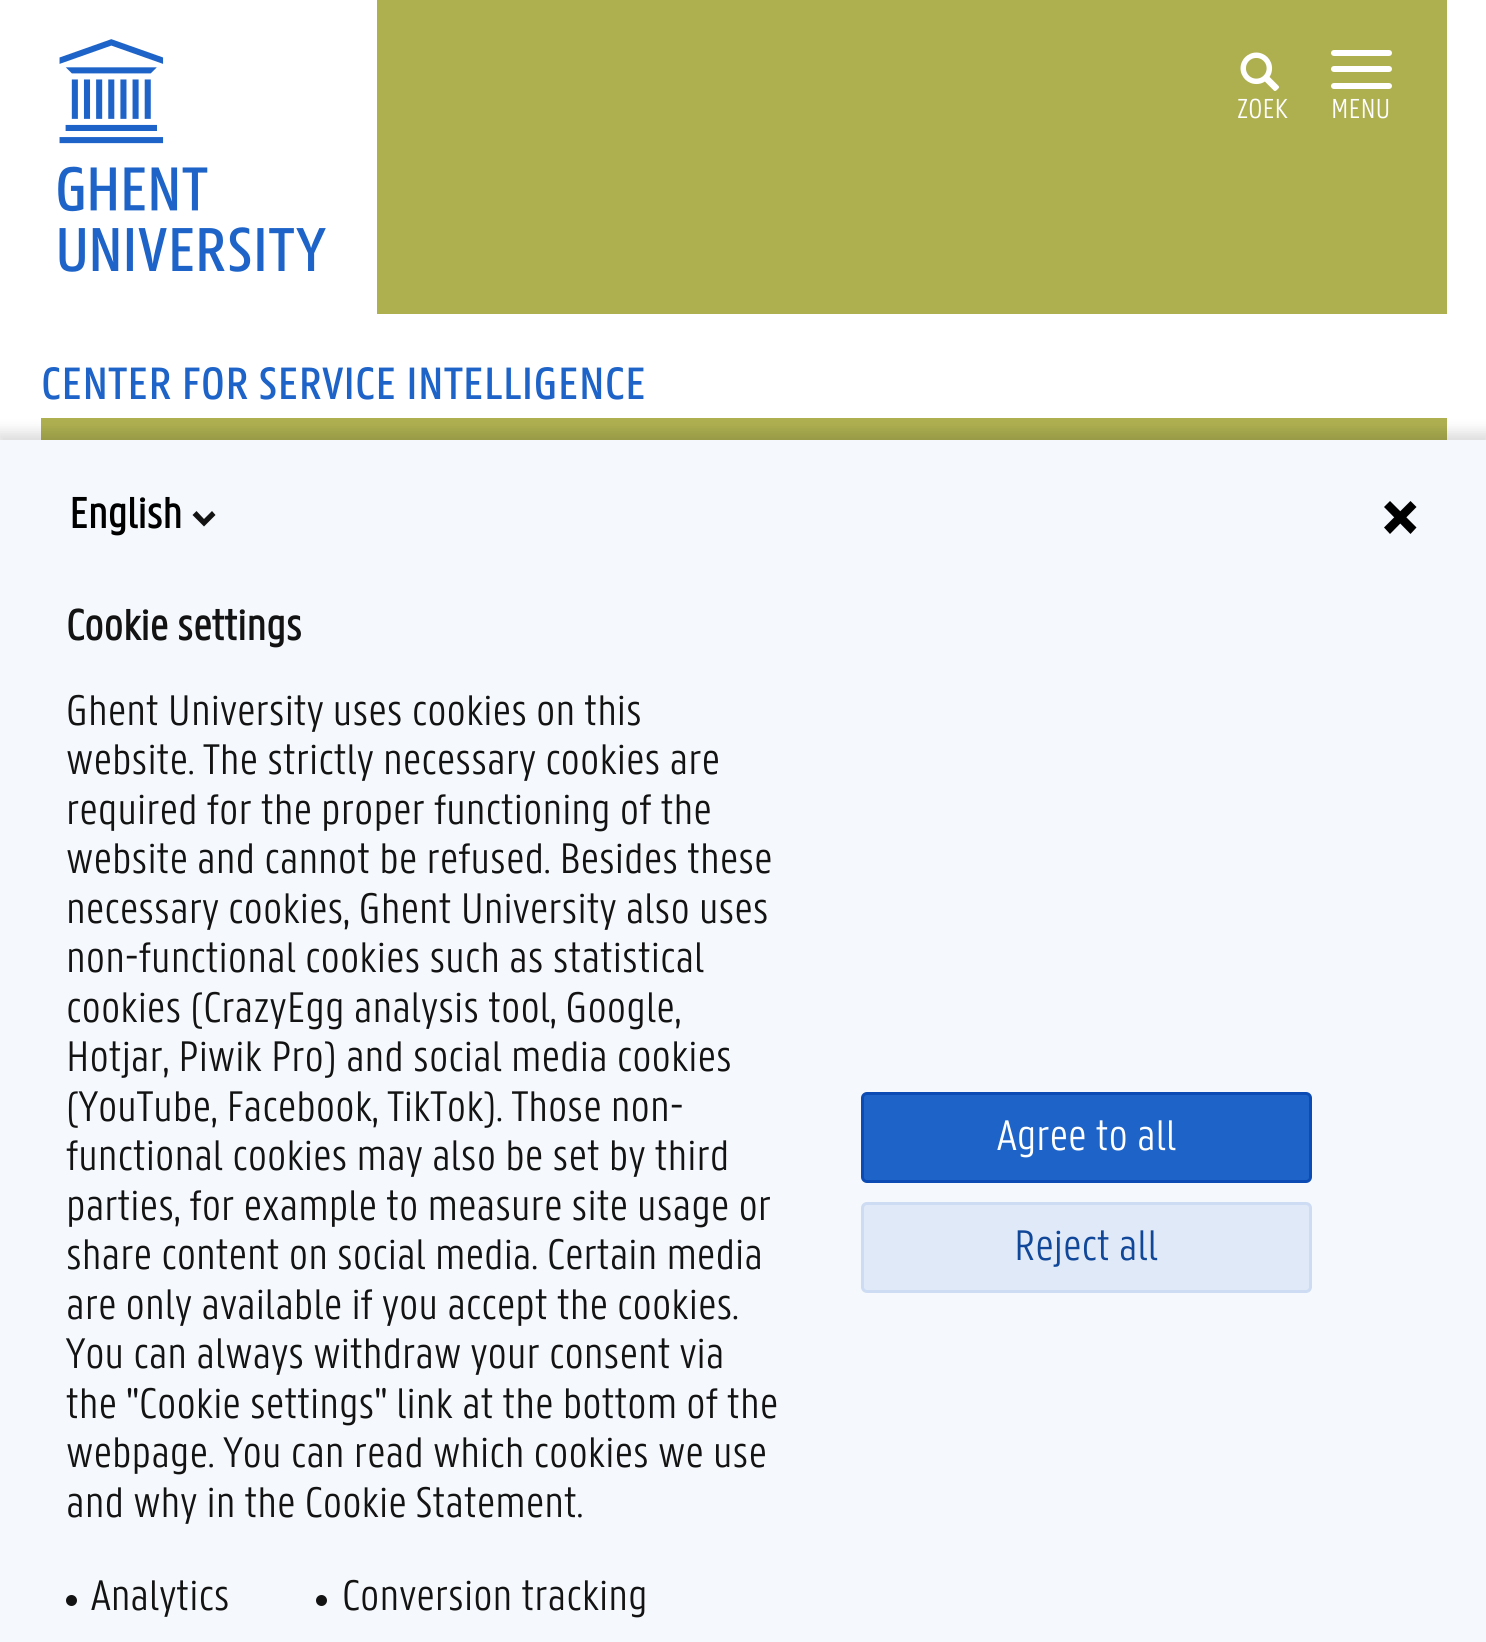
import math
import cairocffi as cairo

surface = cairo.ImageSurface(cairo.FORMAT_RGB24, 1486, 1642)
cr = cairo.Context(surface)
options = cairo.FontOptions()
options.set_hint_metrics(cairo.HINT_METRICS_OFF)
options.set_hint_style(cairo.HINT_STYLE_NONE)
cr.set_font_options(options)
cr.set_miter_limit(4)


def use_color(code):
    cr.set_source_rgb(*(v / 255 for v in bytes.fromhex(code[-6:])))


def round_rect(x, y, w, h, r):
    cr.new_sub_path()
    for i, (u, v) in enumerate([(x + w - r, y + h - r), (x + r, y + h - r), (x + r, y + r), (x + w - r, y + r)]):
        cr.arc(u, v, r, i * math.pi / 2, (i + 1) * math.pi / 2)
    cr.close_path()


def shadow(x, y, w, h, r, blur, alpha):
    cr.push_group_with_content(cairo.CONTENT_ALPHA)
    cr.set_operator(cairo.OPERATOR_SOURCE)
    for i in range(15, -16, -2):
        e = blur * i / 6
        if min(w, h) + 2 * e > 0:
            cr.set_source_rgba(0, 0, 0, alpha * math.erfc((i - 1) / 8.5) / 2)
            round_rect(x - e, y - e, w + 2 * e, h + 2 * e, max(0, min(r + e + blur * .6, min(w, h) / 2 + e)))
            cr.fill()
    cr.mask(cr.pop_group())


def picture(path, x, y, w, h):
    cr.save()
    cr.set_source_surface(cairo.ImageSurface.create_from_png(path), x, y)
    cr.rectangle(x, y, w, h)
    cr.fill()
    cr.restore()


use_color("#ffffff")
cr.paint()
use_color("#aeb050")
cr.rectangle(377, 0, 1070, 314)
cr.fill()
picture("img1.png", 58, 39, 268, 233)
picture("img2.png", 1240, 52, 40, 39)
cr.select_font_face("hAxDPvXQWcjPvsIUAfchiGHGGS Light")
cr.set_font_size(30)
use_color("#ffffff")
cr.move_to(1237, 118)
cr.show_text("ZOEK")
round_rect(1331, 50, 61, 6, 3)
cr.fill()
round_rect(1331, 66, 61, 6, 3)
cr.fill()
round_rect(1331, 83, 61, 6, 3)
cr.fill()
cr.move_to(1331, 118)
cr.show_text("MENU")
cr.select_font_face("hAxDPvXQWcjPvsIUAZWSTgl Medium")
cr.set_font_size(49.5)
use_color("#1e64c8")
cr.move_to(41, 399)
cr.show_text("CENTER FOR SERVICE INTELLIGENCE")
use_color("#aeb050")
cr.rectangle(41, 418, 1406, 22)
cr.fill()
use_color("#000000")
shadow(-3, 432, 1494, 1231, 0, 7, 0.14)
use_color("#f5f8fc")
cr.rectangle(0, 440, 1486, 1202)
cr.fill()
cr.select_font_face("hAxDPvXQWcjPvsIUAfchiGHGGS", cairo.FONT_SLANT_NORMAL, cairo.FONT_WEIGHT_BOLD)
cr.set_font_size(46.75)
use_color("#000000")
cr.move_to(69, 528)
cr.show_text("English")
use_color("#131313")
cr.new_path()
cr.move_to(204, 519)
cr.line_to(212, 511)
cr.line_to(215.5, 515)
cr.line_to(204, 526.5)
cr.line_to(192.5, 515)
cr.line_to(196.5, 511)
cr.close_path()
cr.fill()
use_color("#000000")
cr.new_path()
cr.move_to(1384, 507)
cr.line_to(1390, 501)
cr.line_to(1416.5, 527.5)
cr.line_to(1410.5, 534)
cr.line_to(1384, 507)
cr.fill()
cr.new_path()
cr.move_to(1410.5, 501)
cr.line_to(1416.5, 507)
cr.line_to(1390, 534)
cr.line_to(1384, 527.5)
cr.line_to(1410.5, 501)
cr.fill()
use_color("#131313")
cr.move_to(66, 640)
cr.show_text("Cookie settings")
cr.select_font_face("hAxDPvXQWcjPvsIUAfchiGHGGS Light")
cr.move_to(66, 725)
cr.show_text("Ghent University uses cookies on this")
cr.move_to(66, 774)
cr.show_text("website. The strictly necessary cookies are")
cr.move_to(66, 824)
cr.show_text("required for the proper functioning of the")
cr.move_to(66, 873)
cr.show_text("website and cannot be refused. Besides these")
cr.move_to(66, 923)
cr.show_text("necessary cookies, Ghent University also uses")
cr.move_to(66, 972)
cr.show_text("non-functional cookies such as statistical")
cr.move_to(66, 1022)
cr.show_text("cookies (CrazyEgg analysis tool, Google,")
cr.move_to(66, 1071)
cr.show_text("Hotjar, Piwik Pro) and social media cookies")
cr.move_to(66, 1121)
cr.show_text("(YouTube, Facebook, TikTok). Those non-")
cr.move_to(66, 1170)
cr.show_text("functional cookies may also be set by third")
cr.move_to(66, 1220)
cr.show_text("parties, for example to measure site usage or")
cr.move_to(66, 1269)
cr.show_text("share content on social media. Certain media")
cr.move_to(66, 1319)
cr.show_text("are only available if you accept the cookies.")
cr.move_to(66, 1368)
cr.show_text("You can always withdraw your consent via")
cr.move_to(66, 1418)
cr.show_text("the \"Cookie settings\" link at the bottom of the")
cr.move_to(66, 1467)
cr.show_text("webpage. You can read which cookies we use")
cr.move_to(66, 1517)
cr.show_text("and why in the Cookie Statement.")
cr.new_path()
cr.arc(71.5, 1600.5, 5.5, 0, 2 * math.pi)
cr.fill()
cr.move_to(91, 1610)
cr.show_text("Analytics")
cr.new_path()
cr.arc(321.5, 1600.5, 5.5, 0, 2 * math.pi)
cr.fill()
cr.move_to(342, 1610)
cr.show_text("Conversion tracking")
use_color("#1e64c8")
round_rect(862.5, 1093.5, 448, 88, 4.5)
cr.fill_preserve()
use_color("#0b4bb3")
cr.set_line_width(3)
cr.stroke()
use_color("#ffffff")
cr.move_to(997, 1150)
cr.show_text("Agree to all")
use_color("#e0e9f7")
round_rect(861, 1202, 451, 91, 6)
cr.fill()
round_rect(862.5, 1203.5, 448, 88, 4.5)
cr.set_source_rgba(0.118, 0.392, 0.784, 0.1)
cr.stroke()
use_color("#114799")
cr.move_to(1014, 1260)
cr.show_text("Reject all")
surface.write_to_png("result.png")
